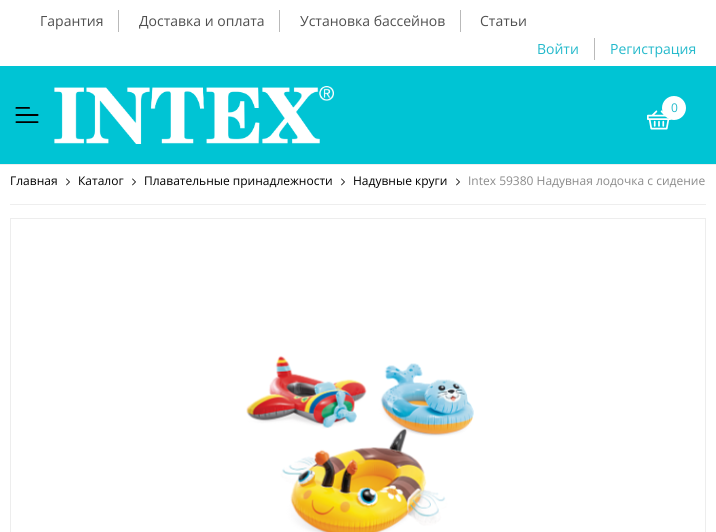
import math
import cairocffi as cairo

surface = cairo.ImageSurface(cairo.FORMAT_RGB24, 716, 532)
cr = cairo.Context(surface)
options = cairo.FontOptions()
options.set_hint_metrics(cairo.HINT_METRICS_OFF)
options.set_hint_style(cairo.HINT_STYLE_NONE)
cr.set_font_options(options)
cr.set_miter_limit(4)


def use_color(code):
    cr.set_source_rgb(*(v / 255 for v in bytes.fromhex(code[-6:])))


def picture(path, x, y, w, h):
    cr.save()
    cr.set_source_surface(cairo.ImageSurface.create_from_png(path), x, y)
    cr.rectangle(x, y, w, h)
    cr.fill()
    cr.restore()


use_color("#ffffff")
cr.paint()
use_color("#b9b9b9")
cr.rectangle(118, 10, 1, 22)
cr.fill()
cr.select_font_face("Open Sans")
cr.set_font_size(14)
use_color("#4f4f4f")
cr.move_to(40, 26)
cr.show_text("Гарантия")
use_color("#b9b9b9")
cr.rectangle(279, 10, 1, 22)
cr.fill()
use_color("#4f4f4f")
cr.move_to(139, 26)
cr.show_text("Доставка и оплата")
use_color("#b9b9b9")
cr.rectangle(460, 10, 1, 22)
cr.fill()
use_color("#4f4f4f")
cr.move_to(300, 26)
cr.show_text("Установка бассейнов")
cr.move_to(480, 26)
cr.show_text("Статьи")
use_color("#b9b9b9")
cr.rectangle(594, 38, 1, 22)
cr.fill()
use_color("#23b9cb")
cr.move_to(537, 54)
cr.show_text("Войти")
cr.move_to(610, 54)
cr.show_text("Регистрация")
use_color("#eeeeee")
cr.rectangle(0, 164, 716, 1)
cr.fill()
use_color("#00c4d4")
cr.rectangle(0, 66, 716, 98)
cr.fill()
picture("img1.png", 15, 107, 24, 16)
picture("img2.png", 54, 86, 280, 58)
picture("img3.png", 647, 110, 24, 20)
use_color("#ffffff")
cr.arc(674, 108, 11, 0, 2 * math.pi)
cr.fill_preserve()
cr.stroke()
cr.set_font_size(12)
use_color("#23b9cb")
cr.move_to(671, 112)
cr.show_text("0")
use_color("#eeeeee")
cr.rectangle(10, 204, 696, 1)
cr.fill()
use_color("#000000")
cr.move_to(10, 185)
cr.show_text("Главная")
picture("img4.png", 66, 178, 4, 8)
cr.move_to(78, 185)
cr.show_text("Каталог")
picture("img4.png", 132, 178, 4, 8)
cr.move_to(144, 185)
cr.show_text("Плавательные принадлежности")
picture("img4.png", 341, 178, 4, 8)
cr.move_to(353, 185)
cr.show_text("Надувные круги")
picture("img4.png", 456, 178, 4, 8)
use_color("#8b8b8b")
cr.move_to(468, 185)
cr.show_text("Intex 59380 Надувная лодочка с сидение")
cr.rectangle(10.5, 218.5, 695, 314)
use_color("#ededed")
cr.set_line_width(1)
cr.stroke()
picture("img5.png", 246, 355, 228, 177)
surface.write_to_png("result.png")
